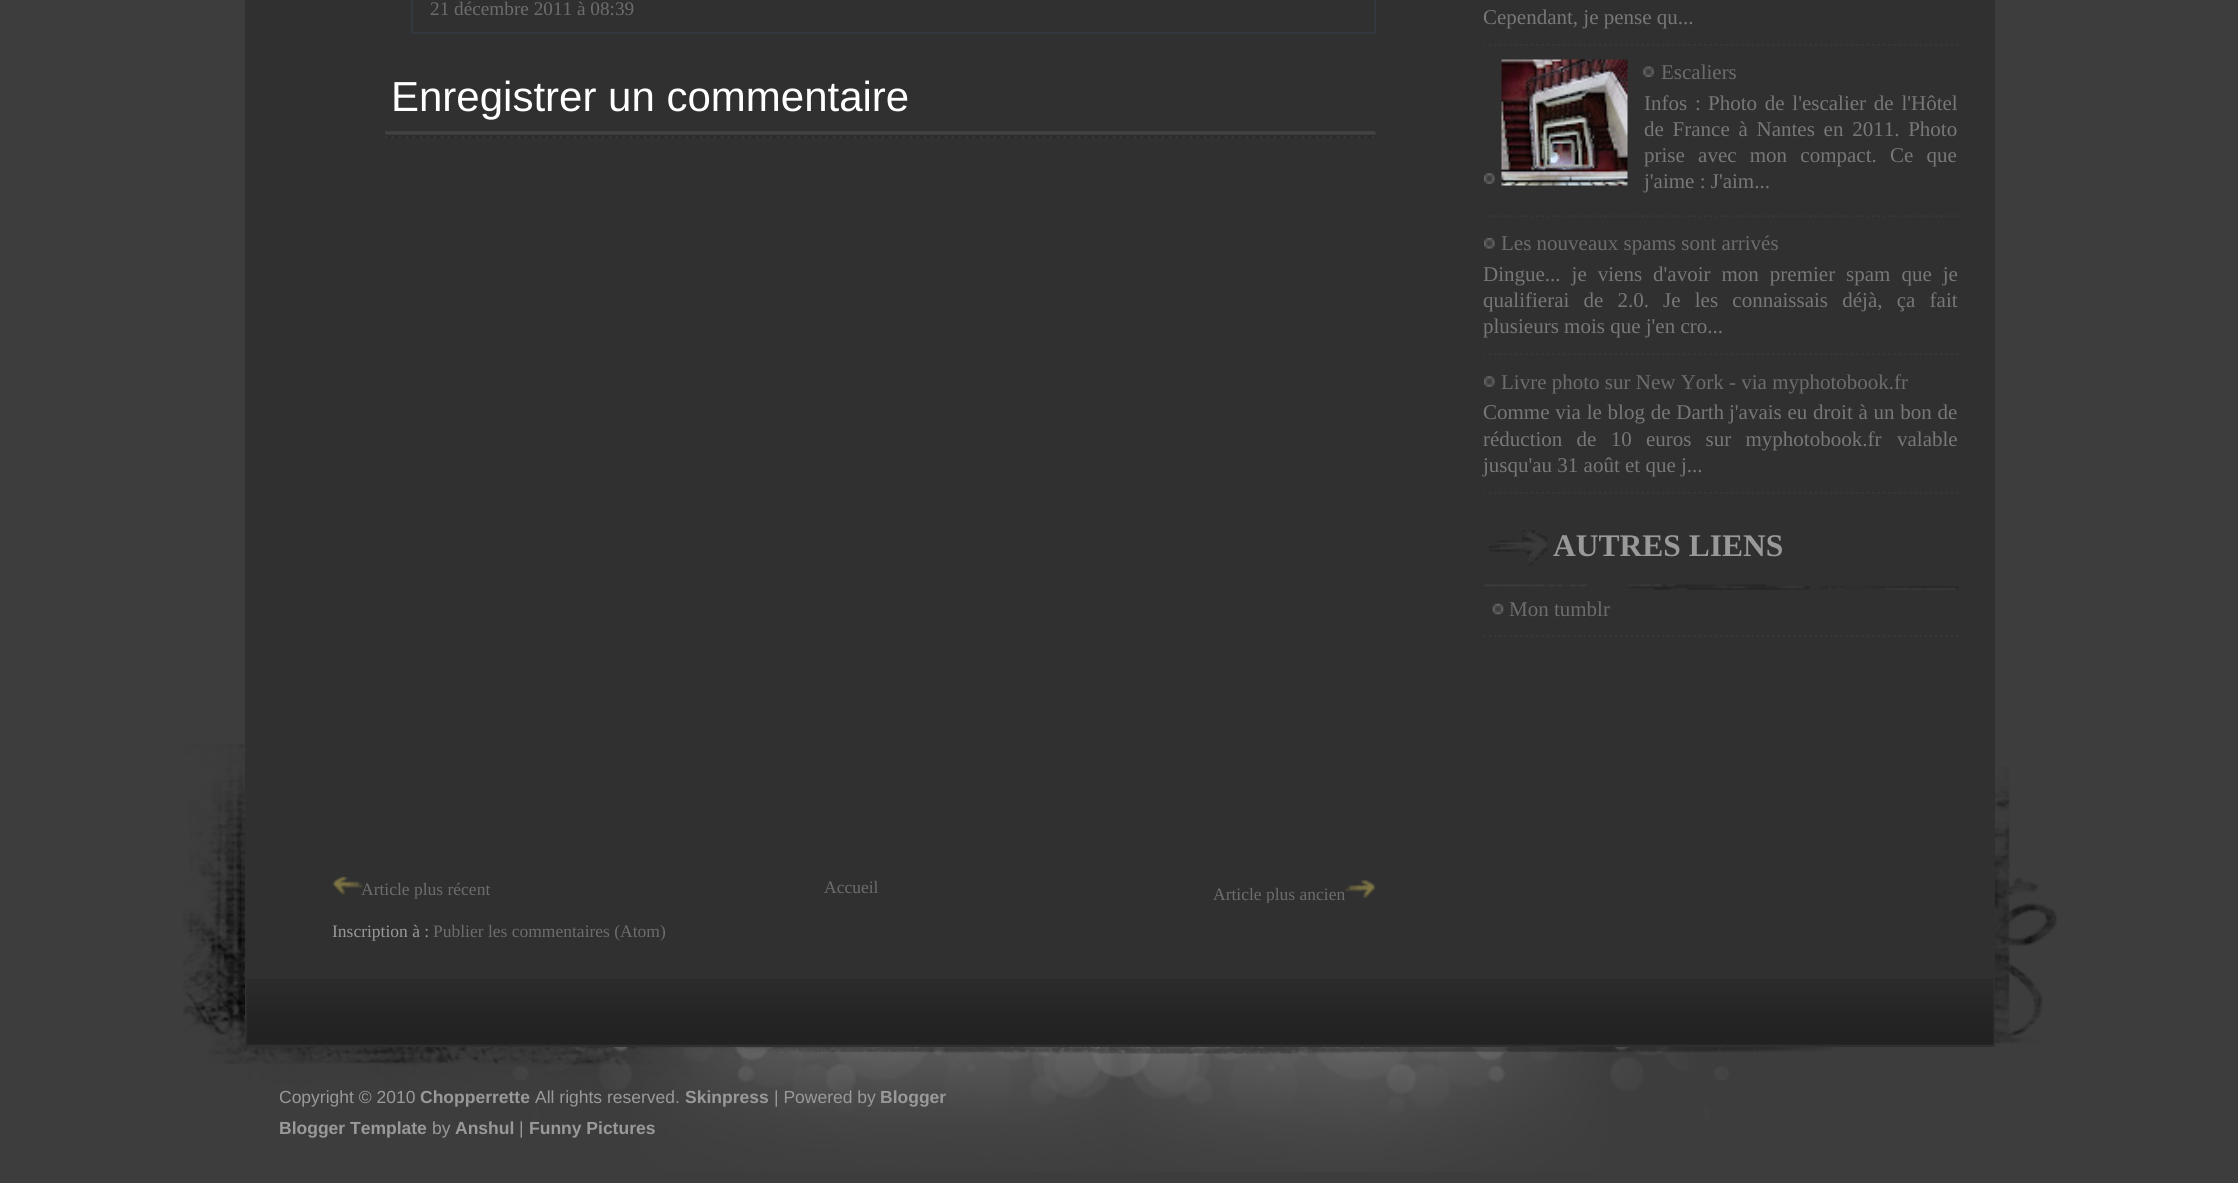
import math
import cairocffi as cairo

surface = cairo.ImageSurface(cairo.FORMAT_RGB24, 2238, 1183)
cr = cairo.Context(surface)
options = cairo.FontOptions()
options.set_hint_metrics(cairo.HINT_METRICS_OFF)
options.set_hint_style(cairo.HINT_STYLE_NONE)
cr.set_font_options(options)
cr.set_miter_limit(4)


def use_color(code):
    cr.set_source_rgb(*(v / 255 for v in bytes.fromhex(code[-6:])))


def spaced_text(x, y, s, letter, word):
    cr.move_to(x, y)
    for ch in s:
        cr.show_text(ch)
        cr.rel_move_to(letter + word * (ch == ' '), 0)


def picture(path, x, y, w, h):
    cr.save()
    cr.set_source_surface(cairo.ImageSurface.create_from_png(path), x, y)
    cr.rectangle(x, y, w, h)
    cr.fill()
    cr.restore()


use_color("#3d3d3d")
cr.paint()
picture("img1.png", 183, 744, 1874, 320)
use_color("#303030")
cr.rectangle(245, 0, 1750, 1047)
cr.fill()
picture("img2.png", 246, 979, 1748, 66)
use_color("#33383e")
cr.rectangle(1374, 0, 2, 33)
cr.fill()
cr.rectangle(411, 32, 965, 2)
cr.fill()
cr.rectangle(411, 0, 2, 33)
cr.fill()
cr.select_font_face("Liberation Serif")
cr.set_font_size(19.25)
use_color("#6c6c6c")
cr.move_to(430, 15)
cr.show_text("21 décembre 2011 à 08:39")
picture("img3.png", 385, 131, 991, 7)
cr.select_font_face("Liberation Sans")
cr.set_font_size(42)
use_color("#ffffff")
cr.move_to(391, 111)
cr.show_text("Enregistrer un commentaire")
picture("img4.png", 332, 877, 31, 18)
cr.select_font_face("Liberation Serif")
cr.set_font_size(17.5)
use_color("#6c6c6c")
cr.move_to(361, 895)
cr.show_text("Article plus récent")
cr.move_to(824, 893)
cr.show_text("Accueil")
cr.save()
cr.rectangle(333, 877, 1043, 26)
cr.clip()
cr.move_to(1213, 900)
cr.show_text("Article plus ancien")
cr.restore()
picture("img5.png", 1345, 880, 31, 18)
use_color("#999999")
cr.move_to(332, 937)
cr.show_text("Inscription à :")
use_color("#6c6c6c")
cr.move_to(433, 937)
cr.show_text("Publier les commentaires (Atom)")
picture("img6.png", 1484, 44, 474, 2)
cr.set_font_size(21)
use_color("#777777")
cr.move_to(1483, 24)
cr.show_text("Cependant, je pense qu...")
picture("img7.png", 1484, 215, 474, 2)
picture("img8.png", 1484, 173, 11, 11)
picture("img9.png", 1501, 59, 127, 127)
picture("img10.png", 1643, 66, 11, 11)
use_color("#6c6c6c")
cr.move_to(1661, 79)
cr.show_text("Escaliers")
use_color("#777777")
spaced_text(1644, 110, "Infos :", 0, 2.5)
spaced_text(1708, 110, "Photo de l'escalier de l'Hôtel", 0, 2.5)
spaced_text(1644, 136, "de France à Nantes en 2011. Photo", 0, 3.5)
spaced_text(1644, 162, "prise avec mon compact.", 0, 8)
spaced_text(1890, 162, "Ce que", 0, 8)
cr.move_to(1644, 188)
cr.show_text("j'aime : J'aim...")
picture("img11.png", 1484, 353, 474, 2)
picture("img12.png", 1484, 238, 11, 11)
use_color("#6c6c6c")
cr.move_to(1501, 250)
cr.show_text("Les nouveaux spams sont arrivés")
use_color("#777777")
spaced_text(1483, 281, "Dingue... je viens d'avoir mon premier spam que je", 0, 5.75)
spaced_text(1483, 307, "qualifierai de 2.0.", 0, 9)
spaced_text(1663, 307, "Je les connaissais déjà, ça fait", 0, 9)
cr.move_to(1483, 333)
cr.show_text("plusieurs mois que j'en cro...")
picture("img6.png", 1484, 492, 474, 2)
picture("img8.png", 1484, 376, 11, 11)
use_color("#6c6c6c")
cr.move_to(1501, 389)
cr.show_text("Livre photo sur New York - via myphotobook.fr")
use_color("#777777")
spaced_text(1483, 419, "Comme via le blog de Darth", 0, 0.5)
spaced_text(1729, 419, "j'avais eu droit à un bon de", 0, 0.5)
spaced_text(1483, 446, "réduction de 10 euros sur myphotobook.fr", 0, 9)
cr.move_to(1897, 446)
cr.show_text("valable")
cr.move_to(1483, 472)
cr.show_text("jusqu'au 31 août et que j...")
picture("img13.png", 1484, 530, 474, 60)
cr.select_font_face("Liberation Serif", cairo.FONT_SLANT_NORMAL, cairo.FONT_WEIGHT_BOLD)
cr.set_font_size(31.5)
use_color("#999999")
cr.move_to(1553, 556)
cr.show_text("AUTRES LIENS")
picture("img7.png", 1484, 635, 474, 2)
picture("img14.png", 1492, 603, 12, 12)
cr.select_font_face("Liberation Serif")
cr.set_font_size(21)
use_color("#6c6c6c")
cr.move_to(1509, 616)
cr.show_text("Mon tumblr")
picture("img15.png", 247, 1047, 1586, 125)
cr.select_font_face("Liberation Sans")
cr.set_font_size(17.5)
use_color("#999999")
cr.move_to(279, 1103)
cr.show_text("Copyright © 2010")
cr.select_font_face("Liberation Sans", cairo.FONT_SLANT_NORMAL, cairo.FONT_WEIGHT_BOLD)
cr.move_to(420, 1103)
cr.show_text("Chopperrette")
cr.select_font_face("Liberation Sans")
cr.move_to(535, 1103)
cr.show_text("All rights reserved.")
cr.select_font_face("Liberation Sans", cairo.FONT_SLANT_NORMAL, cairo.FONT_WEIGHT_BOLD)
cr.move_to(685, 1103)
cr.show_text("Skinpress")
cr.select_font_face("Liberation Sans")
cr.move_to(774, 1103)
cr.show_text("| Powered by")
cr.select_font_face("Liberation Sans", cairo.FONT_SLANT_NORMAL, cairo.FONT_WEIGHT_BOLD)
cr.move_to(880, 1103)
cr.show_text("Blogger")
cr.move_to(279, 1134)
cr.show_text("Blogger Template")
cr.select_font_face("Liberation Sans")
cr.move_to(432, 1134)
cr.show_text("by")
cr.select_font_face("Liberation Sans", cairo.FONT_SLANT_NORMAL, cairo.FONT_WEIGHT_BOLD)
cr.move_to(455, 1134)
cr.show_text("Anshul")
cr.select_font_face("Liberation Sans")
cr.move_to(519, 1134)
cr.show_text("|")
cr.select_font_face("Liberation Sans", cairo.FONT_SLANT_NORMAL, cairo.FONT_WEIGHT_BOLD)
cr.move_to(529, 1134)
cr.show_text("Funny Pictures")
surface.write_to_png("result.png")
